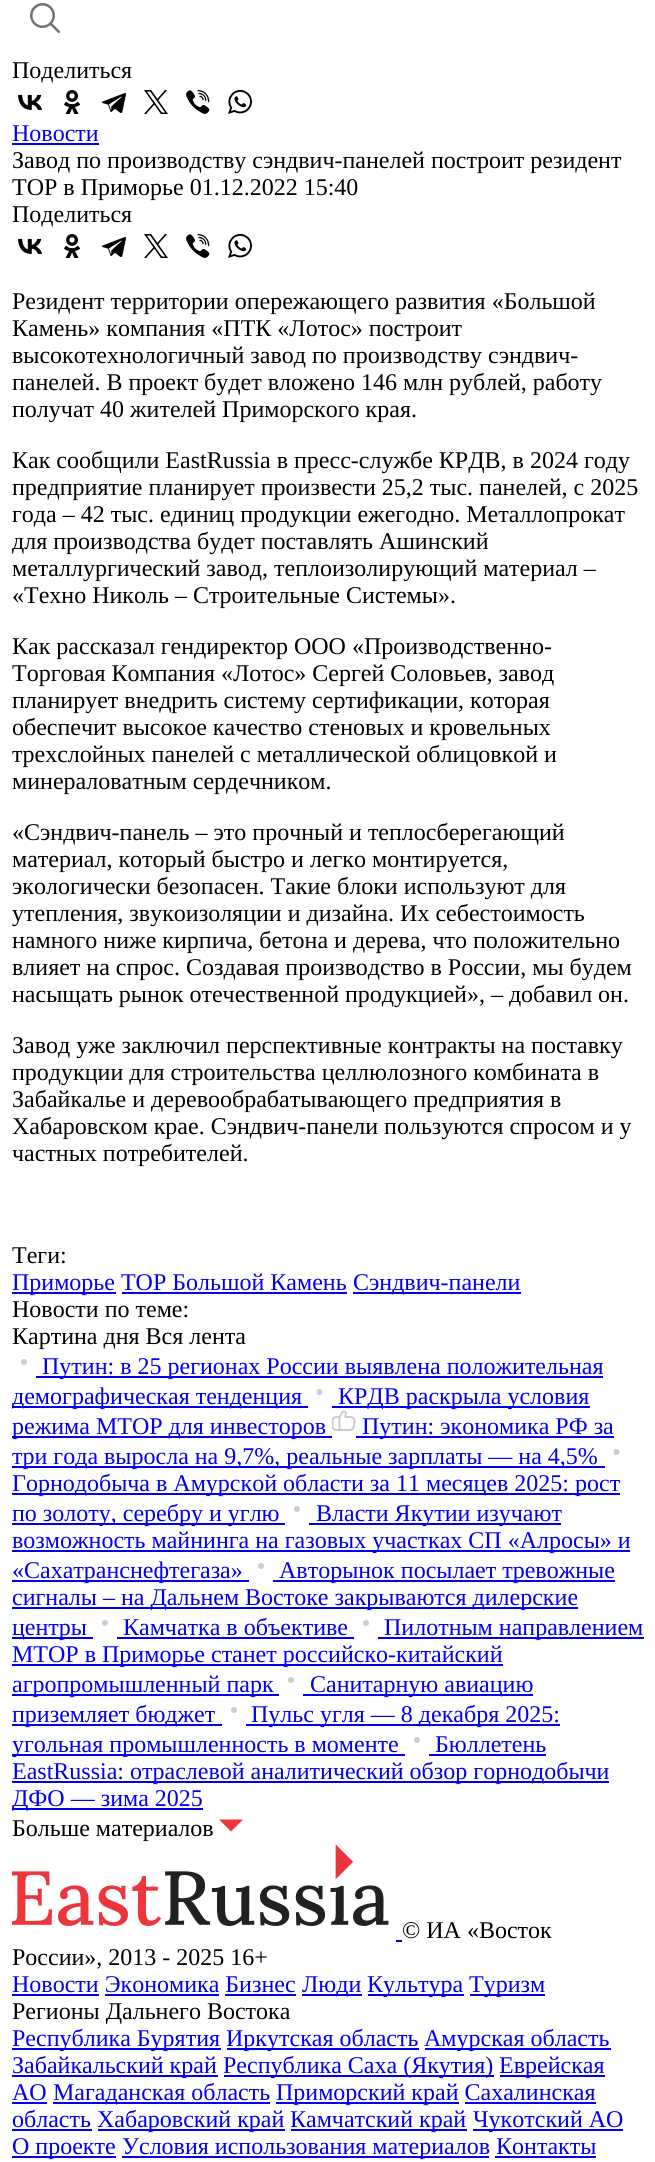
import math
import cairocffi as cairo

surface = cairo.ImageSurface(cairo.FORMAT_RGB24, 655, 2162)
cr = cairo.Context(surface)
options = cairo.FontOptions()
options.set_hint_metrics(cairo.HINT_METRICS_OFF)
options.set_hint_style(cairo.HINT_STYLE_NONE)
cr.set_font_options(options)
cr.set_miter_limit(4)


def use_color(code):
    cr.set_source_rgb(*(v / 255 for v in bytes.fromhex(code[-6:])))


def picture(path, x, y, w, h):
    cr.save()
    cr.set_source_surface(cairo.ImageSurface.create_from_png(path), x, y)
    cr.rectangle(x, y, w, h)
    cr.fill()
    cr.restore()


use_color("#ffffff")
cr.paint()
picture("img1.png", 30, 3, 30, 30)
cr.select_font_face("Liberation Serif")
cr.set_font_size(24)
use_color("#000000")
cr.move_to(12, 78)
cr.show_text("Поделиться")
picture("img2.png", 18, 94, 24, 16)
picture("img3.png", 64, 90, 17, 24)
picture("img4.png", 102, 93, 24, 21)
picture("img5.png", 144, 90, 24, 24)
picture("img6.png", 186, 90, 24, 24)
picture("img7.png", 228, 90, 24, 24)
use_color("#0000ee")
cr.move_to(12, 141)
cr.show_text("Новости")
cr.rectangle(12, 143, 87, 2)
cr.fill()
use_color("#000000")
cr.move_to(12, 168)
cr.show_text("Завод по производству сэндвич-панелей построит резидент")
cr.move_to(12, 195)
cr.show_text("ТОР в Приморье 01.12.2022 15:40")
cr.move_to(12, 222)
cr.show_text("Поделиться")
picture("img2.png", 18, 238, 24, 16)
picture("img3.png", 64, 234, 17, 24)
picture("img4.png", 102, 237, 24, 21)
picture("img5.png", 144, 234, 24, 24)
picture("img6.png", 186, 234, 24, 24)
picture("img7.png", 228, 234, 24, 24)
cr.move_to(12, 309)
cr.show_text("Резидент территории опережающего развития «Большой")
cr.move_to(12, 336)
cr.show_text("Камень» компания «ПТК «Лотос» построит")
cr.move_to(12, 363)
cr.show_text("высокотехнологичный завод по производству сэндвич-")
cr.move_to(12, 390)
cr.show_text("панелей. В проект будет вложено 146 млн рублей, работу")
cr.move_to(12, 417)
cr.show_text("получат 40 жителей Приморского края.")
cr.move_to(12, 468)
cr.show_text("Как сообщили EastRussia в пресс-службе КРДВ, в 2024 году")
cr.move_to(12, 495)
cr.show_text("предприятие планирует произвести 25,2 тыс. панелей, с 2025")
cr.move_to(12, 522)
cr.show_text("года – 42 тыс. единиц продукции ежегодно. Металлопрокат")
cr.move_to(12, 549)
cr.show_text("для производства будет поставлять Ашинский")
cr.move_to(12, 576)
cr.show_text("металлургический завод, теплоизолирующий материал –")
cr.move_to(12, 603)
cr.show_text("«Техно Николь – Строительные Системы».")
cr.move_to(12, 654)
cr.show_text("Как рассказал гендиректор ООО «Производственно-")
cr.move_to(12, 681)
cr.show_text("Торговая Компания «Лотос» Сергей Соловьев, завод")
cr.move_to(12, 708)
cr.show_text("планирует внедрить систему сертификации, которая")
cr.move_to(12, 735)
cr.show_text("обеспечит высокое качество стеновых и кровельных")
cr.move_to(12, 762)
cr.show_text("трехслойных панелей с металлической облицовкой и")
cr.move_to(12, 789)
cr.show_text("минераловатным сердечником.")
cr.move_to(12, 840)
cr.show_text("«Сэндвич-панель – это прочный и теплосберегающий")
cr.move_to(12, 867)
cr.show_text("материал, который быстро и легко монтируется,")
cr.move_to(12, 894)
cr.show_text("экологически безопасен. Такие блоки используют для")
cr.move_to(12, 921)
cr.show_text("утепления, звукоизоляции и дизайна. Их себестоимость")
cr.move_to(12, 948)
cr.show_text("намного ниже кирпича, бетона и дерева, что положительно")
cr.move_to(12, 975)
cr.show_text("влияет на спрос. Создавая производство в России, мы будем")
cr.move_to(12, 1002)
cr.show_text("насыщать рынок отечественной продукцией», – добавил он.")
cr.move_to(12, 1053)
cr.show_text("Завод уже заключил перспективные контракты на поставку")
cr.move_to(12, 1080)
cr.show_text("продукции для строительства целлюлозного комбината в")
cr.move_to(12, 1107)
cr.show_text("Забайкалье и деревообрабатывающего предприятия в")
cr.move_to(12, 1134)
cr.show_text("Хабаровском крае. Сэндвич-панели пользуются спросом и у")
cr.move_to(12, 1161)
cr.show_text("частных потребителей.")
cr.move_to(12, 1263)
cr.show_text("Теги:")
use_color("#0000ee")
cr.rectangle(12, 1292, 104, 2)
cr.fill()
cr.move_to(12, 1290)
cr.show_text("Приморье ТОР Большой Камень")
cr.rectangle(353, 1292, 168, 2)
cr.fill()
cr.move_to(353, 1290)
cr.show_text("Сэндвич-панели")
cr.rectangle(122, 1292, 225, 2)
cr.fill()
use_color("#000000")
cr.move_to(12, 1317)
cr.show_text("Новости по теме:")
cr.move_to(12, 1344)
cr.show_text("Картина дня Вся лента")
use_color("#0000ee")
cr.rectangle(36, 1376, 567, 2)
cr.fill()
cr.move_to(42, 1374)
cr.show_text("Путин: в 25 регионах России выявлена положительная")
use_color("#cccccc")
cr.new_path()
cr.arc(24, 1362, 3, 0, 2 * math.pi)
cr.fill()
use_color("#0000ee")
cr.rectangle(12, 1406, 296, 2)
cr.fill()
cr.move_to(12, 1404)
cr.show_text("демографическая тенденция")
cr.rectangle(332, 1406, 258, 2)
cr.fill()
cr.move_to(338, 1404)
cr.show_text("КРДВ раскрыла условия")
use_color("#cccccc")
cr.new_path()
cr.arc(319.5, 1392, 3, 0, 2 * math.pi)
cr.fill()
use_color("#0000ee")
cr.rectangle(12, 1436, 320, 2)
cr.fill()
cr.move_to(12, 1434)
cr.show_text("режима МТОР для инвесторов")
picture("img8.png", 332, 1410, 24, 21)
cr.rectangle(356, 1436, 258, 2)
cr.fill()
cr.move_to(362, 1434)
cr.show_text("Путин: экономика РФ за")
cr.rectangle(12, 1466, 593, 2)
cr.fill()
cr.move_to(12, 1464)
cr.show_text("три года выросла на 9,7%, реальные зарплаты — на 4,5%")
cr.rectangle(12, 1493, 608, 2)
cr.fill()
cr.move_to(12, 1491)
cr.show_text("Горнодобыча в Амурской области за 11 месяцев 2025: рост")
use_color("#cccccc")
cr.new_path()
cr.arc(616.5, 1452, 3, 0, 2 * math.pi)
cr.fill()
use_color("#0000ee")
cr.rectangle(12, 1523, 273, 2)
cr.fill()
cr.move_to(12, 1521)
cr.show_text("по золоту, серебру и углю")
cr.rectangle(309, 1523, 252, 2)
cr.fill()
cr.move_to(316, 1521)
cr.show_text("Власти Якутии изучают")
use_color("#cccccc")
cr.new_path()
cr.arc(297, 1509, 3, 0, 2 * math.pi)
cr.fill()
use_color("#0000ee")
cr.rectangle(12, 1550, 618, 2)
cr.fill()
cr.move_to(12, 1548)
cr.show_text("возможность майнинга на газовых участках СП «Алросы» и")
cr.rectangle(12, 1580, 237, 2)
cr.fill()
cr.move_to(12, 1578)
cr.show_text("«Сахатранснефтегаза»")
cr.rectangle(273, 1580, 342, 2)
cr.fill()
cr.move_to(279, 1578)
cr.show_text("Авторынок посылает тревожные")
use_color("#cccccc")
cr.new_path()
cr.arc(261, 1566, 3, 0, 2 * math.pi)
cr.fill()
use_color("#0000ee")
cr.rectangle(12, 1607, 566, 2)
cr.fill()
cr.move_to(12, 1605)
cr.show_text("сигналы – на Дальнем Востоке закрываются дилерские")
cr.rectangle(12, 1637, 81, 2)
cr.fill()
cr.move_to(12, 1635)
cr.show_text("центры")
cr.move_to(123, 1635)
cr.show_text("Камчатка в объективе")
use_color("#cccccc")
cr.new_path()
cr.arc(105, 1623, 3, 0, 2 * math.pi)
cr.fill()
use_color("#0000ee")
cr.rectangle(117, 1637, 237, 2)
cr.fill()
cr.rectangle(378, 1637, 266, 2)
cr.fill()
cr.move_to(384, 1635)
cr.show_text("Пилотным направлением")
use_color("#cccccc")
cr.new_path()
cr.arc(366, 1623, 3, 0, 2 * math.pi)
cr.fill()
use_color("#0000ee")
cr.rectangle(12, 1664, 491, 2)
cr.fill()
cr.move_to(12, 1662)
cr.show_text("МТОР в Приморье станет российско-китайский")
cr.rectangle(12, 1694, 261, 2)
cr.fill()
cr.move_to(12, 1692)
cr.show_text("агропромышленный парк")
cr.rectangle(273, 1694, 6, 2)
cr.fill()
cr.rectangle(303, 1694, 230, 2)
cr.fill()
cr.move_to(310, 1692)
cr.show_text("Санитарную авиацию")
use_color("#cccccc")
cr.new_path()
cr.arc(291, 1680, 3, 0, 2 * math.pi)
cr.fill()
use_color("#0000ee")
cr.rectangle(12, 1724, 210, 2)
cr.fill()
cr.move_to(12, 1722)
cr.show_text("приземляет бюджет")
cr.rectangle(246, 1724, 314, 2)
cr.fill()
cr.move_to(251, 1722)
cr.show_text("Пульс угля — 8 декабря 2025:")
use_color("#cccccc")
cr.new_path()
cr.arc(234, 1710, 3, 0, 2 * math.pi)
cr.fill()
use_color("#0000ee")
cr.rectangle(12, 1754, 393, 2)
cr.fill()
cr.move_to(12, 1752)
cr.show_text("угольная промышленность в моменте")
cr.move_to(435, 1752)
cr.show_text("Бюллетень")
use_color("#cccccc")
cr.new_path()
cr.arc(417, 1740, 3, 0, 2 * math.pi)
cr.fill()
use_color("#0000ee")
cr.rectangle(429, 1754, 117, 2)
cr.fill()
cr.rectangle(12, 1781, 597, 2)
cr.fill()
cr.move_to(12, 1779)
cr.show_text("EastRussia: отраслевой аналитический обзор горнодобычи")
cr.rectangle(12, 1808, 191, 2)
cr.fill()
cr.move_to(12, 1806)
cr.show_text("ДФО — зима 2025")
use_color("#000000")
cr.move_to(12, 1836)
cr.show_text("Больше материалов")
use_color("#ec353c")
cr.new_path()
cr.move_to(219, 1819.5)
cr.line_to(243, 1819.5)
cr.line_to(231, 1831.5)
cr.close_path()
cr.fill()
picture("img9.png", 12, 1844, 377, 82)
use_color("#000000")
cr.move_to(402, 1938)
cr.show_text("© ИА «Восток")
use_color("#0000ee")
cr.rectangle(396, 1940, 6, 2)
cr.fill()
use_color("#000000")
cr.move_to(12, 1965)
cr.show_text("России», 2013 - 2025 16+")
use_color("#0000ee")
cr.move_to(12, 1992)
cr.show_text("Новости Экономика Бизнес")
cr.rectangle(12, 1994, 87, 2)
cr.fill()
cr.rectangle(302, 1994, 60, 2)
cr.fill()
cr.move_to(302, 1992)
cr.show_text("Люди")
cr.rectangle(368, 1994, 96, 2)
cr.fill()
cr.move_to(367, 1992)
cr.show_text("Культура")
cr.rectangle(470, 1994, 75, 2)
cr.fill()
cr.move_to(469, 1992)
cr.show_text("Туризм")
cr.rectangle(105, 1994, 114, 2)
cr.fill()
cr.rectangle(225, 1994, 71, 2)
cr.fill()
use_color("#000000")
cr.move_to(12, 2019)
cr.show_text("Регионы Дальнего Востока")
use_color("#0000ee")
cr.rectangle(12, 2048, 209, 2)
cr.fill()
cr.move_to(12, 2046)
cr.show_text("Республика Бурятия")
cr.rectangle(227, 2048, 192, 2)
cr.fill()
cr.move_to(226, 2046)
cr.show_text("Иркутская область")
cr.rectangle(425, 2048, 186, 2)
cr.fill()
cr.move_to(424, 2046)
cr.show_text("Амурская область")
cr.rectangle(12, 2075, 206, 2)
cr.fill()
cr.move_to(12, 2073)
cr.show_text("Забайкальский край")
cr.rectangle(224, 2075, 270, 2)
cr.fill()
cr.move_to(223, 2073)
cr.show_text("Республика Саха (Якутия)")
cr.rectangle(500, 2075, 105, 2)
cr.fill()
cr.move_to(499, 2073)
cr.show_text("Еврейская")
cr.move_to(12, 2100)
cr.show_text("АО")
cr.rectangle(12, 2102, 35, 2)
cr.fill()
cr.rectangle(53, 2102, 217, 2)
cr.fill()
cr.move_to(53, 2100)
cr.show_text("Магаданская область")
cr.rectangle(276, 2102, 183, 2)
cr.fill()
cr.move_to(276, 2100)
cr.show_text("Приморский край Сахалинская")
cr.move_to(12, 2127)
cr.show_text("область")
cr.rectangle(465, 2102, 131, 2)
cr.fill()
cr.rectangle(12, 2129, 80, 2)
cr.fill()
cr.rectangle(98, 2129, 187, 2)
cr.fill()
cr.move_to(97, 2127)
cr.show_text("Хабаровский край")
cr.rectangle(291, 2129, 176, 2)
cr.fill()
cr.move_to(290, 2127)
cr.show_text("Камчатский край")
cr.rectangle(473, 2129, 150, 2)
cr.fill()
cr.move_to(473, 2127)
cr.show_text("Чукотский АО")
cr.rectangle(12, 2156, 104, 2)
cr.fill()
cr.move_to(12, 2154)
cr.show_text("О проекте")
cr.rectangle(122, 2156, 367, 2)
cr.fill()
cr.move_to(122, 2154)
cr.show_text("Условия использования материалов Контакты")
cr.rectangle(495, 2156, 101, 2)
cr.fill()
surface.write_to_png("result.png")
